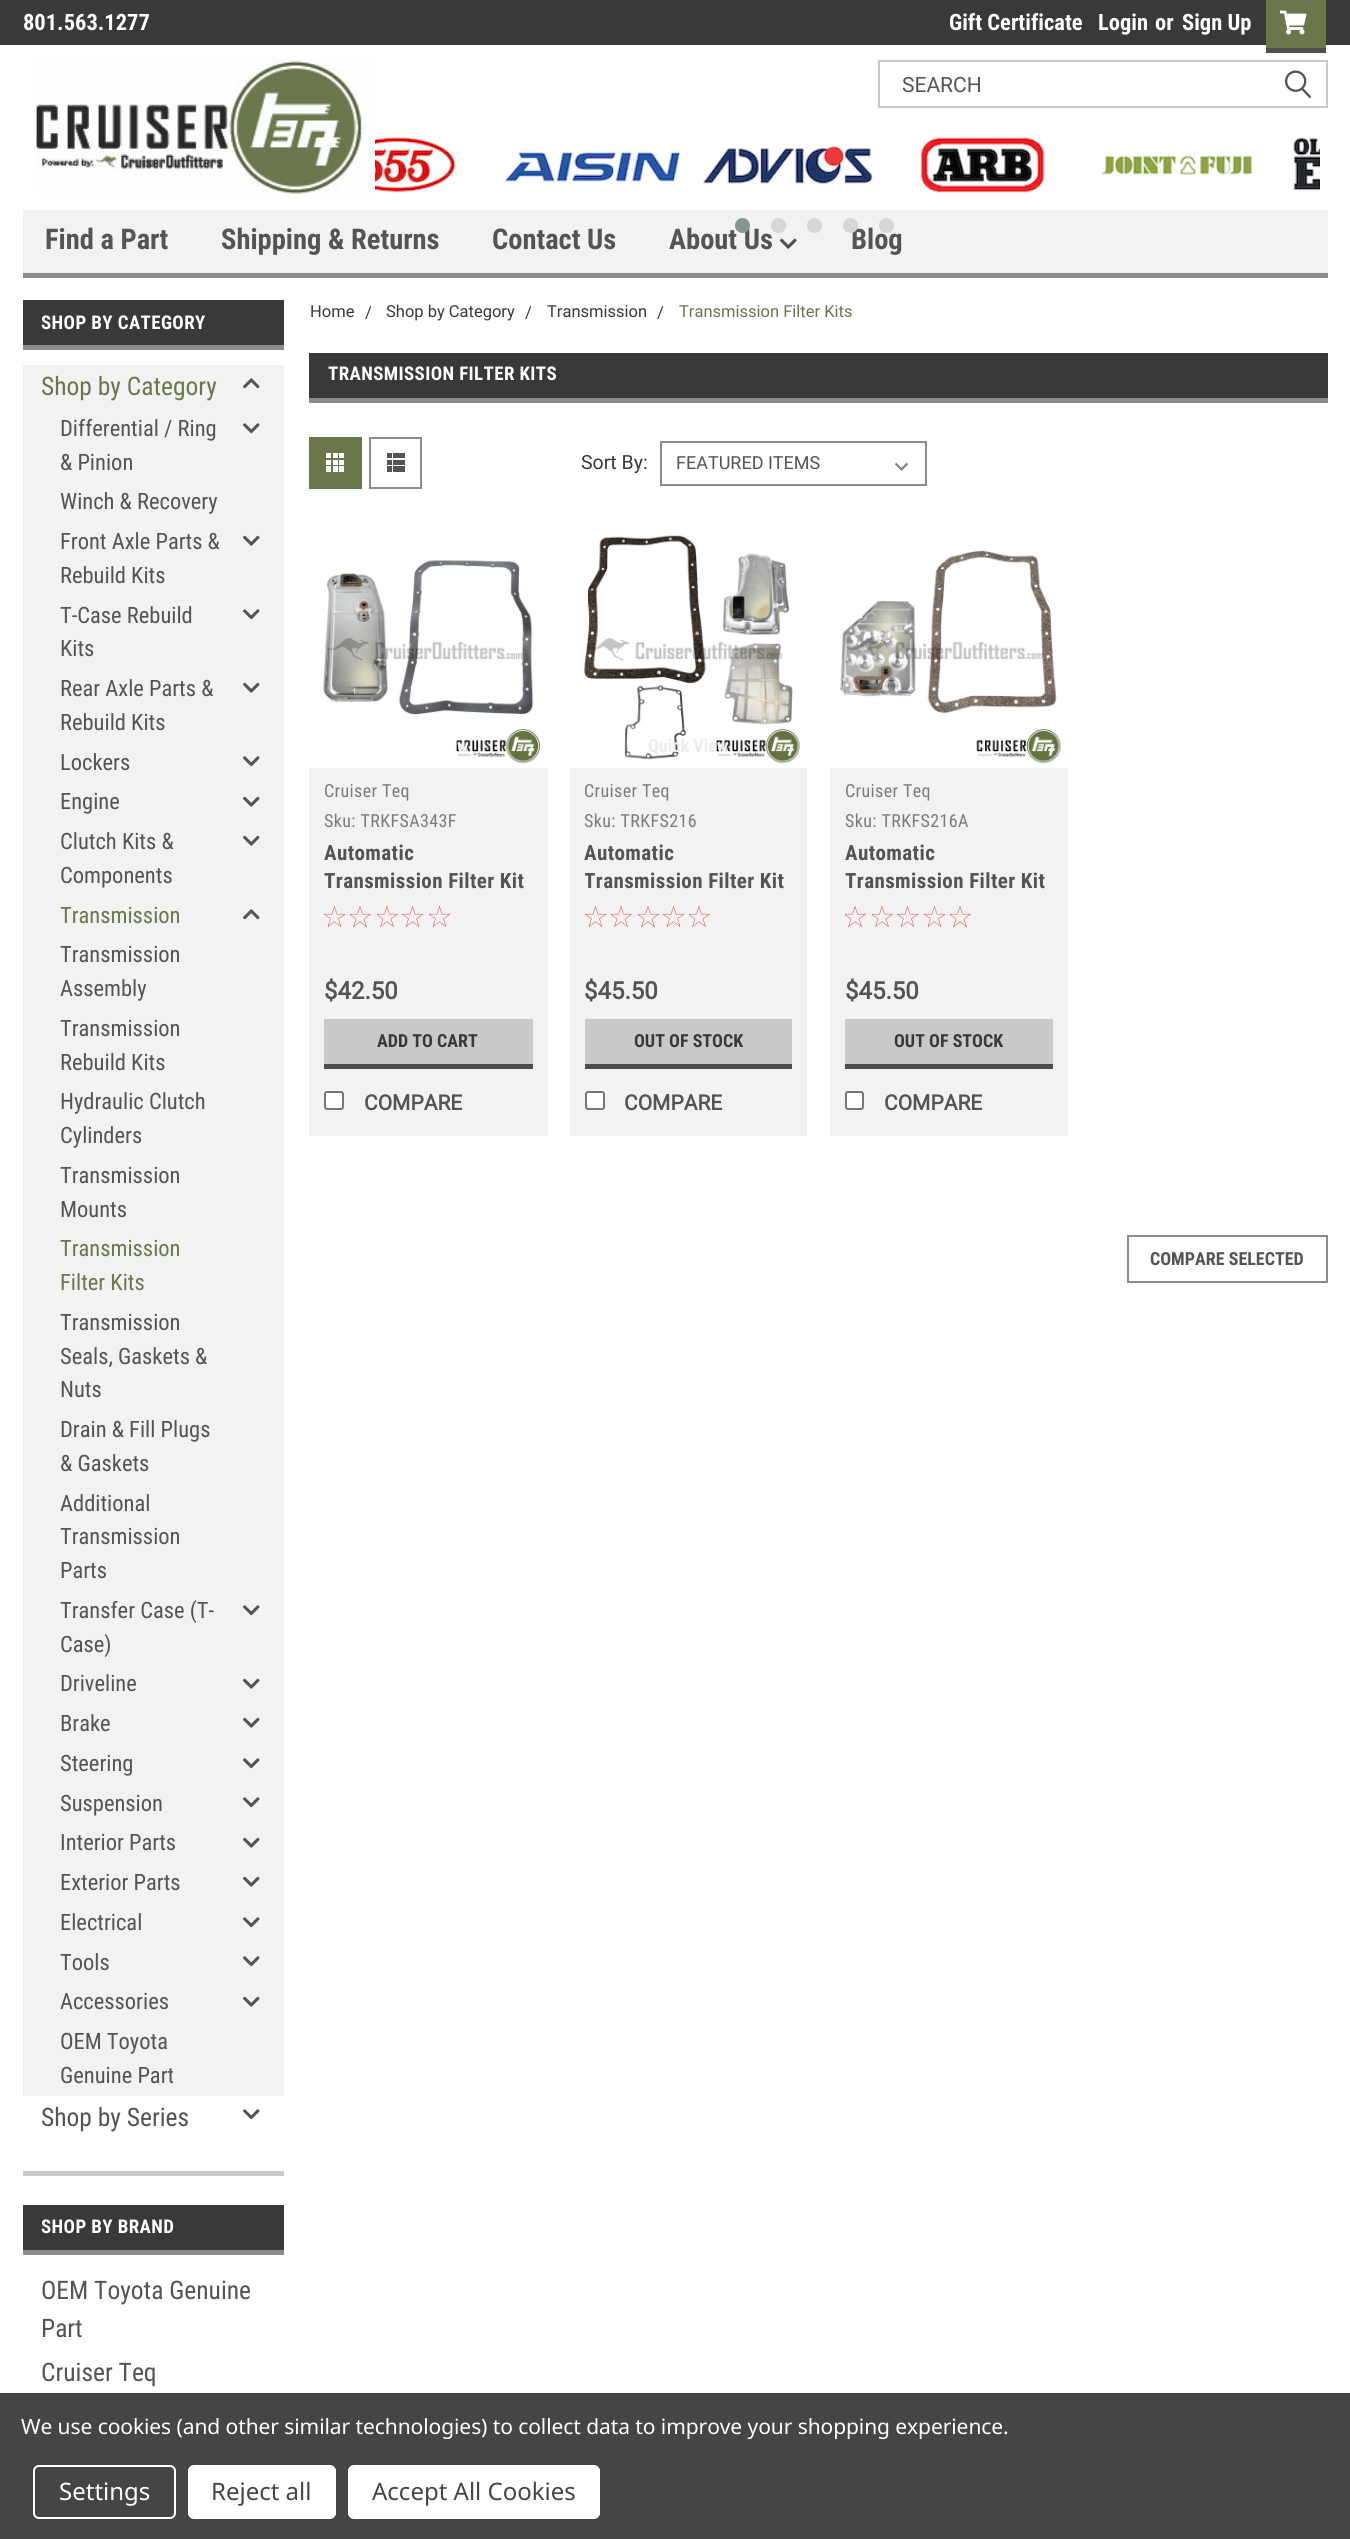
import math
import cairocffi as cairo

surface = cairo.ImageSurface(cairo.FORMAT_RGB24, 1350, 2539)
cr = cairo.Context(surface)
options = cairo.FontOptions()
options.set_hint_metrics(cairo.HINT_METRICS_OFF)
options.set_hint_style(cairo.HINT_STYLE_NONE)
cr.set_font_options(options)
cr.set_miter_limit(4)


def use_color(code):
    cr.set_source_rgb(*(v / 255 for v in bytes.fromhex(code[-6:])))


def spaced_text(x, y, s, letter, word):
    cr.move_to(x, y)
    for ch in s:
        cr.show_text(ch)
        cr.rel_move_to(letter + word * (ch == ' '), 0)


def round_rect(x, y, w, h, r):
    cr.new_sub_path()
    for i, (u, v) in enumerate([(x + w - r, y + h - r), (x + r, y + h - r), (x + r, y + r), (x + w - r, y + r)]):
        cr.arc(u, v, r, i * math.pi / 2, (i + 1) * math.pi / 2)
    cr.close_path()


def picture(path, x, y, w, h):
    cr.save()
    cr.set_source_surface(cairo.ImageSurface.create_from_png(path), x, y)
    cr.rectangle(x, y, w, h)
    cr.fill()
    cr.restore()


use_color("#ffffff")
cr.paint()
use_color("#393939")
cr.rectangle(0, 0, 1350, 45)
cr.fill()
cr.select_font_face("Roboto Condensed", cairo.FONT_SLANT_NORMAL, cairo.FONT_WEIGHT_BOLD)
cr.set_font_size(22.5)
use_color("#ffffff")
cr.move_to(23, 30)
cr.show_text("801.563.1277")
cr.move_to(949, 30)
cr.show_text("Gift Certificate")
cr.move_to(1098, 30)
cr.show_text("Login")
cr.move_to(1155, 30)
cr.show_text("or")
cr.move_to(1182, 30)
cr.show_text("Sign Up")
use_color("#69774b")
cr.rectangle(1266, 0, 60, 48)
cr.fill()
use_color("#4f4f4f")
cr.rectangle(1266, 48, 60, 5)
cr.fill()
picture("img1.png", 1280, 10, 27, 25)
picture("img2.png", 34, 57, 341, 141)
cr.rectangle(879, 61, 448, 46)
use_color("#cac9c9")
cr.stroke()
cr.select_font_face("Roboto")
cr.set_font_size(21)
use_color("#545454")
cr.move_to(902, 92)
cr.show_text("SEARCH")
picture("img3.png", 1284, 70, 27, 28)
picture("img4.png", 375, 137, 81, 56)
picture("img5.png", 505, 151, 176, 31)
picture("img6.png", 703, 145, 170, 40)
picture("img7.png", 920, 137, 125, 56)
picture("img8.png", 1101, 155, 152, 20)
picture("img9.png", 1293, 137, 27, 54)
use_color("#f2f2f2")
cr.rectangle(23, 210, 1305, 63)
cr.fill()
cr.select_font_face("Roboto Condensed", cairo.FONT_SLANT_NORMAL, cairo.FONT_WEIGHT_BOLD)
cr.set_font_size(28.5)
use_color("#545454")
cr.move_to(669, 249)
cr.show_text("About Us")
use_color("#869791")
cr.new_path()
cr.arc(742.5, 225.5, 7.5, 0, 2 * math.pi)
cr.fill()
use_color("#d6d6d6")
cr.arc(778.5, 225.5, 7.5, 0, 2 * math.pi)
cr.fill()
cr.arc(814.5, 225.5, 7.5, 0, 2 * math.pi)
cr.fill()
use_color("#545454")
cr.move_to(851, 249)
cr.show_text("Blog")
use_color("#d6d6d6")
cr.new_path()
cr.arc(850.5, 225.5, 7.5, 0, 2 * math.pi)
cr.fill()
cr.arc(886.5, 225.5, 7.5, 0, 2 * math.pi)
cr.fill()
use_color("#8b8b8b")
cr.rectangle(23, 273, 1305, 5)
cr.fill()
use_color("#545454")
cr.move_to(45, 249)
cr.show_text("Find a Part")
cr.move_to(221, 249)
cr.show_text("Shipping & Returns")
cr.move_to(492, 249)
cr.show_text("Contact Us")
picture("img10.png", 779, 238, 18, 11)
use_color("#cac9c9")
cr.rectangle(23, 2171, 261, 5)
cr.fill()
use_color("#393939")
cr.rectangle(23, 300, 261, 45)
cr.fill()
use_color("#8b8b8b")
cr.rectangle(23, 345, 261, 5)
cr.fill()
cr.set_font_size(18.9)
use_color("#ffffff")
spaced_text(41, 329, "SHOP BY CATEGORY", 0.4, 0)
use_color("#f2f2f2")
cr.rectangle(23, 365, 261, 1731)
cr.fill()
cr.select_font_face("Roboto Condensed")
cr.set_font_size(25.5)
use_color("#69774b")
cr.move_to(41, 395)
cr.show_text("Shop by Category")
picture("img11.png", 243, 378, 17, 11)
cr.set_font_size(22.5)
use_color("#545454")
cr.move_to(60, 436)
cr.show_text("Differential / Ring")
cr.move_to(60, 470)
cr.show_text("& Pinion")
picture("img12.png", 243, 423, 17, 11)
cr.move_to(60, 509)
cr.show_text("Winch & Recovery")
cr.move_to(60, 549)
cr.show_text("Front Axle Parts &")
cr.move_to(60, 583)
cr.show_text("Rebuild Kits")
picture("img13.png", 243, 535, 17, 11)
cr.move_to(60, 623)
cr.show_text("T-Case Rebuild")
cr.move_to(60, 656)
cr.show_text("Kits")
picture("img12.png", 243, 609, 17, 11)
cr.move_to(60, 696)
cr.show_text("Rear Axle Parts &")
cr.move_to(60, 730)
cr.show_text("Rebuild Kits")
picture("img13.png", 243, 682, 17, 11)
cr.move_to(60, 770)
cr.show_text("Lockers")
picture("img12.png", 243, 756, 17, 11)
cr.move_to(60, 809)
cr.show_text("Engine")
picture("img13.png", 243, 796, 17, 11)
cr.move_to(60, 849)
cr.show_text("Clutch Kits &")
cr.move_to(60, 883)
cr.show_text("Components")
picture("img13.png", 243, 835, 17, 11)
use_color("#69774b")
cr.move_to(60, 923)
cr.show_text("Transmission")
picture("img11.png", 243, 909, 17, 11)
use_color("#545454")
cr.move_to(60, 962)
cr.show_text("Transmission")
cr.move_to(60, 996)
cr.show_text("Assembly")
cr.move_to(60, 1036)
cr.show_text("Transmission")
cr.move_to(60, 1070)
cr.show_text("Rebuild Kits")
cr.move_to(60, 1109)
cr.show_text("Hydraulic Clutch")
cr.move_to(60, 1143)
cr.show_text("Cylinders")
cr.move_to(60, 1183)
cr.show_text("Transmission")
cr.move_to(60, 1217)
cr.show_text("Mounts")
use_color("#69774b")
cr.move_to(60, 1256)
cr.show_text("Transmission")
cr.move_to(60, 1290)
cr.show_text("Filter Kits")
use_color("#545454")
cr.move_to(60, 1330)
cr.show_text("Transmission")
cr.move_to(60, 1364)
cr.show_text("Seals, Gaskets &")
cr.move_to(60, 1397)
cr.show_text("Nuts")
cr.move_to(60, 1437)
cr.show_text("Drain & Fill Plugs")
cr.move_to(60, 1471)
cr.show_text("& Gaskets")
cr.move_to(60, 1511)
cr.show_text("Additional")
cr.move_to(60, 1544)
cr.show_text("Transmission")
cr.move_to(60, 1578)
cr.show_text("Parts")
cr.move_to(60, 1618)
cr.show_text("Transfer Case (T-")
cr.move_to(60, 1652)
cr.show_text("Case)")
picture("img12.png", 243, 1605, 17, 11)
cr.move_to(60, 1691)
cr.show_text("Driveline")
picture("img13.png", 243, 1678, 17, 11)
cr.move_to(60, 1731)
cr.show_text("Brake")
picture("img13.png", 243, 1717, 17, 11)
cr.move_to(60, 1771)
cr.show_text("Steering")
picture("img12.png", 243, 1758, 17, 11)
cr.move_to(60, 1811)
cr.show_text("Suspension")
picture("img12.png", 243, 1797, 17, 11)
cr.move_to(60, 1850)
cr.show_text("Interior Parts")
picture("img13.png", 243, 1837, 17, 11)
cr.move_to(60, 1890)
cr.show_text("Exterior Parts")
picture("img13.png", 243, 1876, 17, 11)
cr.move_to(60, 1930)
cr.show_text("Electrical")
picture("img12.png", 243, 1917, 17, 11)
cr.move_to(60, 1970)
cr.show_text("Tools")
picture("img12.png", 243, 1956, 17, 11)
cr.move_to(60, 2009)
cr.show_text("Accessories")
picture("img13.png", 243, 1996, 17, 11)
cr.move_to(60, 2049)
cr.show_text("OEM Toyota")
cr.move_to(60, 2083)
cr.show_text("Genuine Part")
cr.set_font_size(25.5)
cr.move_to(41, 2126)
cr.show_text("Shop by Series")
picture("img14.png", 243, 2109, 17, 11)
use_color("#393939")
cr.rectangle(23, 2205, 261, 45)
cr.fill()
use_color("#8b8b8b")
cr.rectangle(23, 2250, 261, 5)
cr.fill()
cr.select_font_face("Roboto Condensed", cairo.FONT_SLANT_NORMAL, cairo.FONT_WEIGHT_BOLD)
cr.set_font_size(18.9)
use_color("#ffffff")
spaced_text(41, 2233, "SHOP BY BRAND", 0.4, 0)
cr.select_font_face("Roboto Condensed")
cr.set_font_size(25.5)
use_color("#545454")
cr.move_to(41, 2299)
cr.show_text("OEM Toyota Genuine")
cr.move_to(41, 2337)
cr.show_text("Part")
cr.move_to(41, 2381)
cr.show_text("Cruiser Teq")
cr.select_font_face("Roboto")
cr.set_font_size(16.5)
use_color("#393939")
cr.move_to(310, 317)
cr.show_text("Home")
cr.move_to(365, 318)
cr.show_text("/")
cr.move_to(386, 317)
cr.show_text("Shop by Category")
cr.move_to(525, 318)
cr.show_text("/")
cr.move_to(547, 317)
cr.show_text("Transmission")
cr.move_to(657, 318)
cr.show_text("/")
use_color("#69774b")
cr.move_to(679, 317)
cr.show_text("Transmission Filter Kits")
use_color("#393939")
cr.rectangle(309, 353, 1019, 45)
cr.fill()
use_color("#8b8b8b")
cr.rectangle(309, 398, 1019, 5)
cr.fill()
cr.select_font_face("Roboto Condensed", cairo.FONT_SLANT_NORMAL, cairo.FONT_WEIGHT_BOLD)
cr.set_font_size(18.9)
use_color("#ffffff")
spaced_text(328, 380, "TRANSMISSION FILTER KITS", 0.4, 0)
use_color("#69774b")
cr.rectangle(309, 437, 53, 52)
cr.fill()
picture("img15.png", 326, 453, 18, 19)
cr.rectangle(370, 438, 51, 50)
use_color("#8b8b8b")
cr.stroke()
picture("img16.png", 387, 453, 18, 19)
cr.select_font_face("Roboto")
cr.set_font_size(19.5)
use_color("#393939")
cr.move_to(581, 469)
cr.show_text("Sort By:")
picture("img17.png", 894, 462, 15, 9)
cr.rectangle(661, 442, 265, 43)
use_color("#8b8b8b")
cr.stroke()
cr.set_font_size(18)
use_color("#545454")
cr.move_to(676, 469)
cr.show_text("FEATURED ITEMS")
use_color("#f2f2f2")
cr.rectangle(309, 768, 239, 368)
cr.fill()
picture("img18.png", 322, 560, 218, 204)
cr.select_font_face("Roboto Condensed", cairo.FONT_SLANT_NORMAL, cairo.FONT_WEIGHT_BOLD)
cr.move_to(457, 752)
cr.show_text("w")
cr.select_font_face("Roboto Condensed")
use_color("#7b7b7b")
spaced_text(324, 797, "Cruiser Teq", 0.4, 0)
spaced_text(324, 827, "Sku: TRKFSA343F", 0.4, 0)
cr.select_font_face("Roboto Condensed", cairo.FONT_SLANT_NORMAL, cairo.FONT_WEIGHT_BOLD)
cr.set_font_size(21)
use_color("#545454")
spaced_text(324, 860, "Automatic", 0.4, 0)
spaced_text(324, 888, "Transmission Filter Kit", 0.4, 0)
picture("img19.png", 324, 906, 21, 21)
picture("img20.png", 350, 906, 21, 21)
picture("img20.png", 377, 906, 21, 21)
picture("img19.png", 402, 906, 21, 21)
picture("img19.png", 429, 906, 21, 21)
cr.select_font_face("Roboto", cairo.FONT_SLANT_NORMAL, cairo.FONT_WEIGHT_BOLD)
cr.set_font_size(24)
cr.move_to(324, 999)
cr.show_text("$42.50")
use_color("#cac9c9")
cr.rectangle(324, 1019, 209, 45)
cr.fill()
use_color("#4c4c4c")
cr.rectangle(324, 1064, 209, 5)
cr.fill()
cr.select_font_face("Roboto Condensed", cairo.FONT_SLANT_NORMAL, cairo.FONT_WEIGHT_BOLD)
cr.set_font_size(18)
use_color("#393939")
cr.move_to(377, 1047)
cr.show_text("ADD TO CART")
use_color("#ffffff")
round_rect(325, 1092, 18, 17, 2)
cr.fill_preserve()
use_color("#767676")
cr.stroke()
cr.select_font_face("Roboto", cairo.FONT_SLANT_NORMAL, cairo.FONT_WEIGHT_BOLD)
cr.set_font_size(21)
use_color("#545454")
cr.move_to(364, 1110)
cr.show_text("COMPARE")
use_color("#f2f2f2")
cr.rectangle(570, 768, 237, 368)
cr.fill()
picture("img21.png", 584, 535, 216, 229)
cr.select_font_face("Roboto Condensed", cairo.FONT_SLANT_NORMAL, cairo.FONT_WEIGHT_BOLD)
cr.set_font_size(18)
use_color("#ececec")
cr.move_to(648, 752)
cr.show_text("Quick View")
cr.select_font_face("Roboto Condensed")
use_color("#7b7b7b")
spaced_text(584, 797, "Cruiser Teq", 0.4, 0)
spaced_text(584, 827, "Sku: TRKFS216", 0.4, 0)
cr.select_font_face("Roboto Condensed", cairo.FONT_SLANT_NORMAL, cairo.FONT_WEIGHT_BOLD)
cr.set_font_size(21)
use_color("#545454")
spaced_text(584, 860, "Automatic", 0.4, 0)
cr.save()
cr.rectangle(585, 839, 207, 60)
cr.clip()
spaced_text(584, 888, "Transmission Filter Kit", 0.4, 0)
cr.restore()
picture("img19.png", 585, 906, 21, 21)
picture("img20.png", 611, 906, 21, 21)
picture("img20.png", 638, 906, 21, 21)
picture("img19.png", 663, 906, 21, 21)
picture("img20.png", 689, 906, 21, 21)
cr.select_font_face("Roboto", cairo.FONT_SLANT_NORMAL, cairo.FONT_WEIGHT_BOLD)
cr.set_font_size(24)
cr.move_to(584, 999)
cr.show_text("$45.50")
use_color("#cac9c9")
cr.rectangle(585, 1019, 207, 45)
cr.fill()
use_color("#4c4c4c")
cr.rectangle(585, 1064, 207, 5)
cr.fill()
cr.select_font_face("Roboto Condensed", cairo.FONT_SLANT_NORMAL, cairo.FONT_WEIGHT_BOLD)
cr.set_font_size(18)
use_color("#393939")
cr.move_to(634, 1047)
cr.show_text("OUT OF STOCK")
use_color("#ffffff")
round_rect(586, 1092, 18, 17, 2)
cr.fill_preserve()
use_color("#767676")
cr.stroke()
cr.select_font_face("Roboto", cairo.FONT_SLANT_NORMAL, cairo.FONT_WEIGHT_BOLD)
cr.set_font_size(21)
use_color("#545454")
cr.move_to(624, 1110)
cr.show_text("COMPARE")
use_color("#f2f2f2")
cr.rectangle(830, 768, 238, 368)
cr.fill()
picture("img22.png", 839, 550, 222, 214)
cr.select_font_face("Roboto Condensed")
cr.set_font_size(18)
use_color("#7b7b7b")
spaced_text(845, 797, "Cruiser Teq", 0.4, 0)
spaced_text(845, 827, "Sku: TRKFS216A", 0.4, 0)
cr.select_font_face("Roboto Condensed", cairo.FONT_SLANT_NORMAL, cairo.FONT_WEIGHT_BOLD)
cr.set_font_size(21)
use_color("#545454")
spaced_text(845, 860, "Automatic", 0.4, 0)
spaced_text(845, 888, "Transmission Filter Kit", 0.4, 0)
picture("img20.png", 845, 906, 21, 21)
picture("img20.png", 872, 906, 21, 21)
picture("img19.png", 897, 906, 21, 21)
picture("img19.png", 924, 906, 21, 21)
picture("img20.png", 950, 906, 21, 21)
cr.select_font_face("Roboto", cairo.FONT_SLANT_NORMAL, cairo.FONT_WEIGHT_BOLD)
cr.set_font_size(24)
cr.move_to(845, 999)
cr.show_text("$45.50")
use_color("#cac9c9")
cr.rectangle(845, 1019, 208, 45)
cr.fill()
use_color("#4c4c4c")
cr.rectangle(845, 1064, 208, 5)
cr.fill()
cr.select_font_face("Roboto Condensed", cairo.FONT_SLANT_NORMAL, cairo.FONT_WEIGHT_BOLD)
cr.set_font_size(18)
use_color("#393939")
cr.move_to(894, 1047)
cr.show_text("OUT OF STOCK")
use_color("#ffffff")
round_rect(846, 1092, 17, 17, 2)
cr.fill_preserve()
use_color("#767676")
cr.stroke()
cr.select_font_face("Roboto", cairo.FONT_SLANT_NORMAL, cairo.FONT_WEIGHT_BOLD)
cr.set_font_size(21)
use_color("#545454")
cr.move_to(884, 1110)
cr.show_text("COMPARE")
cr.rectangle(1128, 1236, 199, 46)
use_color("#8b8b8b")
cr.stroke()
cr.select_font_face("Roboto Condensed", cairo.FONT_SLANT_NORMAL, cairo.FONT_WEIGHT_BOLD)
cr.set_font_size(18)
use_color("#545454")
cr.move_to(1150, 1265)
cr.show_text("COMPARE SELECTED")
use_color("#454545")
cr.rectangle(0, 2393, 1350, 146)
cr.fill()
cr.select_font_face("Noto Sans")
cr.set_font_size(21)
use_color("#ffffff")
spaced_text(21, 2434, "We use cookies (and other similar technologies) to collect data to improve your shopping experience.", -0.08, 0)
round_rect(34, 2466, 141, 52, 5)
cr.stroke()
cr.set_font_size(24)
cr.move_to(59, 2500)
cr.show_text("Settings")
round_rect(188, 2465, 148, 54, 6)
cr.fill()
use_color("#454545")
cr.move_to(211, 2500)
cr.show_text("Reject all")
use_color("#ffffff")
round_rect(348, 2465, 252, 54, 6)
cr.fill()
use_color("#454545")
cr.move_to(372, 2500)
cr.show_text("Accept All Cookies")
surface.write_to_png("result.png")
